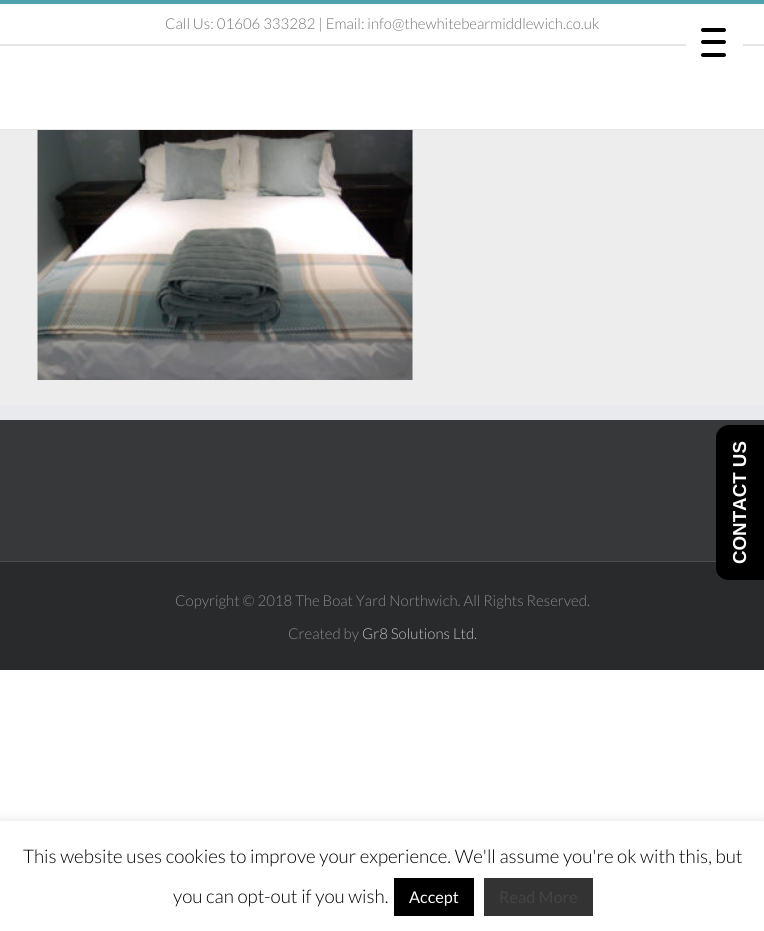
import math
import cairocffi as cairo

surface = cairo.ImageSurface(cairo.FORMAT_RGB24, 764, 931)
cr = cairo.Context(surface)
options = cairo.FontOptions()
options.set_hint_metrics(cairo.HINT_METRICS_OFF)
options.set_hint_style(cairo.HINT_STYLE_NONE)
cr.set_font_options(options)
cr.set_miter_limit(4)


def use_color(code):
    cr.set_source_rgb(*(v / 255 for v in bytes.fromhex(code[-6:])))


def round_rect(x, y, w, h, r):
    cr.new_sub_path()
    for i, (u, v) in enumerate([(x + w - r, y + h - r), (x + r, y + h - r), (x + r, y + r), (x + w - r, y + r)]):
        cr.arc(u, v, r, i * math.pi / 2, (i + 1) * math.pi / 2)
    cr.close_path()


def shadow(x, y, w, h, r, blur, alpha):
    cr.push_group_with_content(cairo.CONTENT_ALPHA)
    cr.set_operator(cairo.OPERATOR_SOURCE)
    for i in range(15, -16, -2):
        e = blur * i / 6
        if min(w, h) + 2 * e > 0:
            cr.set_source_rgba(0, 0, 0, alpha * math.erfc((i - 1) / 8.5) / 2)
            round_rect(x - e, y - e, w + 2 * e, h + 2 * e, max(0, min(r + e + blur * .6, min(w, h) / 2 + e)))
            cr.fill()
    cr.mask(cr.pop_group())


def picture(path, x, y, w, h):
    cr.save()
    cr.set_source_surface(cairo.ImageSurface.create_from_png(path), x, y)
    cr.rectangle(x, y, w, h)
    cr.fill()
    cr.restore()


use_color("#ffffff")
cr.paint()
use_color("#4ea2b0")
cr.rectangle(0, 0, 764, 4)
cr.fill()
use_color("#e5e5e5")
cr.rectangle(0, 44, 764, 2)
cr.fill()
cr.select_font_face("Lato Light")
cr.set_font_size(15)
use_color("#747474")
cr.move_to(165, 29)
cr.show_text("Call Us: 01606 333282 | Email: info@thewhitebearmiddlewich.co.uk")
use_color("#e5e5e5")
cr.rectangle(0, 129, 764, 1)
cr.fill()
use_color("#ededed")
cr.rectangle(0, 130, 764, 275)
cr.fill()
picture("img1.png", 37, 130, 376, 250)
use_color("#363839")
cr.rectangle(0, 420, 764, 141)
cr.fill()
use_color("#e9eaee")
cr.rectangle(0, 405, 764, 15)
cr.fill()
use_color("#282a2b")
cr.rectangle(0, 562, 764, 108)
cr.fill()
use_color("#4b4c4d")
cr.rectangle(0, 561, 716, 1)
cr.fill()
use_color("#8c8989")
cr.move_to(175, 606)
cr.show_text("Copyright © 2018 The Boat Yard Northwich. All Rights Reserved.")
cr.move_to(288, 639)
cr.show_text("Created by")
use_color("#bfbfbf")
cr.move_to(362, 639)
cr.show_text("Gr8 Solutions Ltd.")
use_color("#ffffff")
round_rect(686, 13, 57, 56, 6)
cr.fill()
use_color("#000000")
round_rect(701, 40, 25, 4, 2)
cr.fill()
round_rect(701, 28, 25, 4, 2)
cr.fill()
round_rect(701, 53, 25, 4, 2)
cr.fill()
cr.new_path()
cr.move_to(716, 568)
cr.line_to(716, 437)
cr.curve_to(716, 431, 722, 425, 729, 425)
cr.line_to(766, 425)
cr.line_to(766, 580)
cr.line_to(729, 580)
cr.curve_to(722, 580, 716, 575, 716, 568)
cr.close_path()
cr.fill()
cr.select_font_face("Liberation Sans", cairo.FONT_SLANT_NORMAL, cairo.FONT_WEIGHT_BOLD)
cr.set_font_size(18.75)
use_color("#ffffff")
cr.save()
cr.translate(746, 564)
cr.rotate(-90 * math.pi / 180)
cr.move_to(0, 0)
cr.show_text("CONTACT US")
cr.restore()
use_color("#acabab")
shadow(0, 820, 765, 110, 0, 6, 0.3)
use_color("#ffffff")
cr.rectangle(0, 821, 764, 110)
cr.fill()
cr.select_font_face("Lato Light")
use_color("#000000")
cr.move_to(23, 863)
cr.show_text("This website uses cookies to improve your experience. We'll assume you're ok with this, but")
cr.move_to(173, 903)
cr.show_text("you can opt-out if you wish.")
cr.rectangle(394, 878, 80, 38)
cr.fill()
cr.select_font_face("Lato")
cr.set_font_size(16.25)
use_color("#ffffff")
cr.move_to(409, 903)
cr.show_text("Accept")
use_color("#333333")
cr.rectangle(484, 878, 109, 38)
cr.fill()
use_color("#444444")
cr.move_to(499, 903)
cr.show_text("Read More")
surface.write_to_png("result.png")
